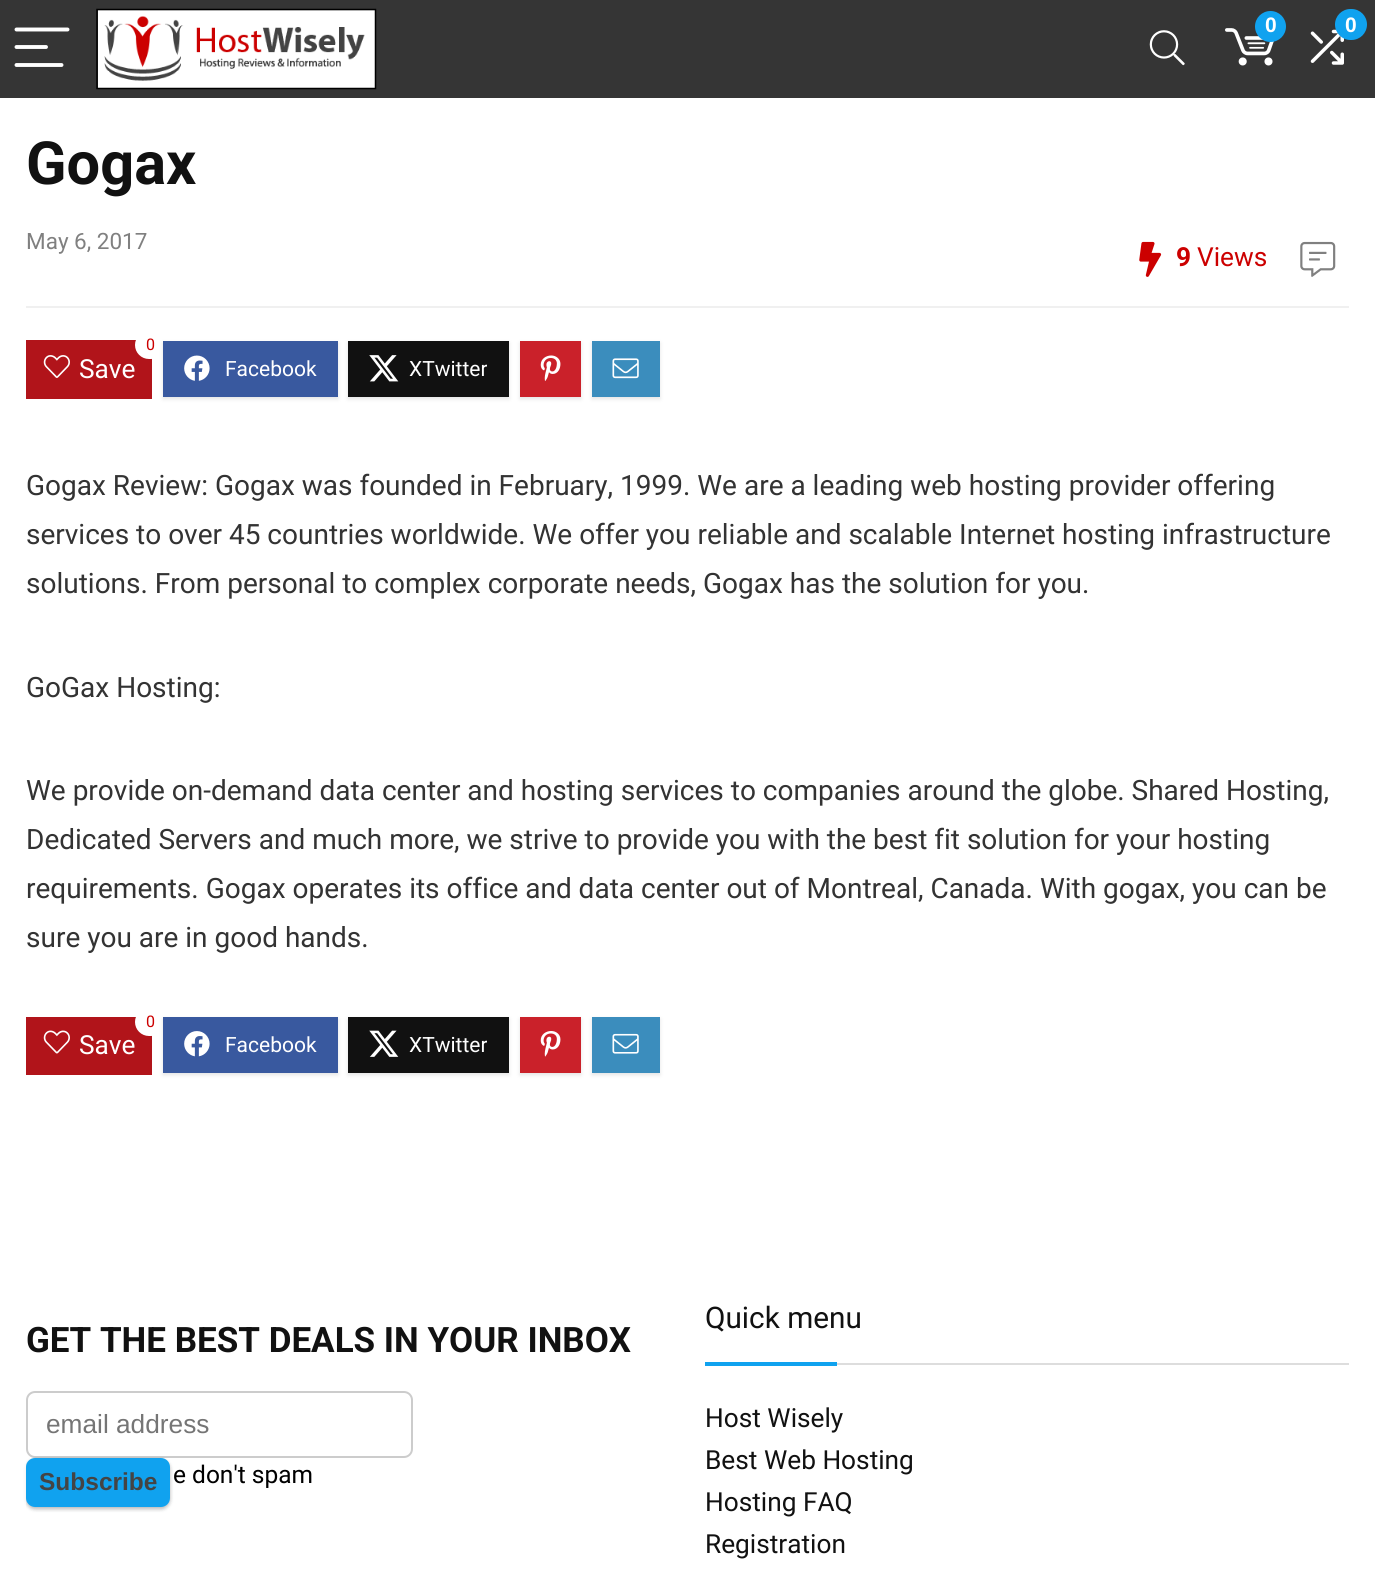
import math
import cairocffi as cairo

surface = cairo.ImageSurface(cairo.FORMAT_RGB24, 1375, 1588)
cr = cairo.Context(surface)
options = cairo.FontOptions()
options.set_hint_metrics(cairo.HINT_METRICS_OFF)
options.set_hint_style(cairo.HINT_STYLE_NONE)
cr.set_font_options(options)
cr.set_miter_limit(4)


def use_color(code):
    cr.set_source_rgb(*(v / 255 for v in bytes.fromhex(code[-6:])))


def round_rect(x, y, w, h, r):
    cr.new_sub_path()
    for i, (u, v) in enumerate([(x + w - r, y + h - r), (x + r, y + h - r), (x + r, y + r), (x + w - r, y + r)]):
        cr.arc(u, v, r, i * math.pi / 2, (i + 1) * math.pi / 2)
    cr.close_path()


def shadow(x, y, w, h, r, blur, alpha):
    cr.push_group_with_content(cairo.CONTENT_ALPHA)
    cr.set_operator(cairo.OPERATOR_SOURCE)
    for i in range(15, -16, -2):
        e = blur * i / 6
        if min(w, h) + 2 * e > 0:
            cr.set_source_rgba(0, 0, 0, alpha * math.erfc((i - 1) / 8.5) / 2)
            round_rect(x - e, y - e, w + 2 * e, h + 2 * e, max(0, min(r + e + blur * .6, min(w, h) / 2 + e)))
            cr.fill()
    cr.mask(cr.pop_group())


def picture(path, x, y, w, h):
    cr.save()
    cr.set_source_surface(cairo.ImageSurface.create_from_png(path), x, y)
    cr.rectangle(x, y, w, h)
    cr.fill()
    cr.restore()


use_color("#ffffff")
cr.paint()
use_color("#353535")
cr.rectangle(0, 0, 1375, 98)
cr.fill()
picture("img1.png", 96, 8, 281, 82)
picture("img2.png", 1225, 28, 49, 38)
use_color("#10a2ef")
cr.arc(1270.5, 26.5, 15.5, 0, 2 * math.pi)
cr.fill()
cr.select_font_face("Liberation Sans", cairo.FONT_SLANT_NORMAL, cairo.FONT_WEIGHT_BOLD)
cr.set_font_size(21)
use_color("#ffffff")
cr.move_to(1265, 32)
cr.show_text("0")
picture("img3.png", 1310, 29, 34, 36)
use_color("#10a2ef")
round_rect(1335, 9, 32, 31, 15.5)
cr.fill()
use_color("#ffffff")
cr.move_to(1345, 32)
cr.show_text("0")
picture("img4.png", 1149, 30, 36, 36)
cr.new_path()
cr.move_to(16.5, 29.5)
cr.line_to(67.5, 29.5)
cr.move_to(16.5, 47)
cr.line_to(46, 47)
cr.move_to(16.5, 65)
cr.line_to(61.5, 65)
cr.set_line_width(3.9)
cr.set_line_cap(cairo.LINE_CAP_ROUND)
cr.stroke()
cr.select_font_face("Roboto", cairo.FONT_SLANT_NORMAL, cairo.FONT_WEIGHT_BOLD)
cr.set_font_size(59.5)
use_color("#111111")
cr.move_to(26, 184)
cr.show_text("Gogax")
use_color("#f0f0f0")
cr.rectangle(26, 306, 1323, 2)
cr.fill()
cr.select_font_face("Roboto")
cr.set_font_size(22.5)
use_color("#808080")
cr.move_to(26, 249)
cr.show_text("May 6, 2017")
picture("img5.png", 1139, 241, 23, 36)
cr.select_font_face("Roboto", cairo.FONT_SLANT_NORMAL, cairo.FONT_WEIGHT_BOLD)
cr.set_font_size(26.25)
use_color("#cc0000")
cr.move_to(1176, 266)
cr.show_text("9")
cr.select_font_face("Roboto")
cr.move_to(1197, 266)
cr.show_text("Views")
picture("img6.png", 1300, 241, 36, 36)
use_color("#b1141a")
cr.rectangle(26, 340, 126, 59)
cr.fill()
cr.save()
cr.rectangle(26, 334, 1323, 76)
cr.clip()
use_color("#ffffff")
round_rect(135, 331, 30, 28, 14)
cr.fill()
cr.restore()
cr.set_font_size(16)
use_color("#cc0000")
cr.move_to(146, 350)
cr.show_text("0")
picture("img7.png", 43, 355, 27, 23)
cr.set_font_size(26.25)
use_color("#ffffff")
cr.move_to(79, 378)
cr.show_text("Save")
use_color("#e4e4e4")
shadow(163, 343, 175, 56, 0, 2, 1)
use_color("#39599f")
cr.rectangle(163, 341, 175, 56)
cr.fill()
picture("img8.png", 184, 355, 26, 26)
cr.set_font_size(21)
use_color("#ffffff")
cr.move_to(225, 376)
cr.show_text("Facebook")
use_color("#e4e4e4")
shadow(348, 343, 161, 56, 0, 2, 1)
use_color("#111111")
cr.rectangle(348, 341, 161, 56)
cr.fill()
picture("img9.png", 369, 355, 30, 27)
use_color("#ffffff")
cr.move_to(409, 376)
cr.show_text("XTwitter")
use_color("#e4e4e4")
shadow(520, 343, 61, 56, 0, 2, 1)
use_color("#ca212a")
cr.rectangle(520, 341, 61, 56)
cr.fill()
picture("img10.png", 540, 355, 21, 26)
use_color("#e4e4e4")
shadow(592, 343, 68, 56, 0, 2, 1)
use_color("#3b8dbd")
cr.rectangle(592, 341, 68, 56)
cr.fill()
picture("img11.png", 612, 358, 27, 21)
cr.set_font_size(28)
use_color("#333333")
cr.move_to(26, 495)
cr.show_text("Gogax Review: Gogax was founded in February, 1999. We are a leading web hosting provider offering")
cr.move_to(26, 544)
cr.show_text("services to over 45 countries worldwide. We offer you reliable and scalable Internet hosting infrastructure")
cr.move_to(26, 593)
cr.show_text("solutions. From personal to complex corporate needs, Gogax has the solution for you.")
cr.move_to(26, 697)
cr.show_text("GoGax Hosting:")
cr.move_to(26, 800)
cr.show_text("We provide on-demand data center and hosting services to companies around the globe. Shared Hosting,")
cr.move_to(26, 849)
cr.show_text("Dedicated Servers and much more, we strive to provide you with the best fit solution for your hosting")
cr.move_to(26, 898)
cr.show_text("requirements. Gogax operates its office and data center out of Montreal, Canada. With gogax, you can be")
cr.move_to(26, 947)
cr.show_text("sure you are in good hands.")
use_color("#b1141a")
cr.rectangle(26, 1017, 126, 58)
cr.fill()
use_color("#ffffff")
round_rect(135, 1008, 30, 28, 14)
cr.fill()
cr.set_font_size(16)
use_color("#cc0000")
cr.move_to(146, 1027)
cr.show_text("0")
picture("img12.png", 43, 1030, 27, 24)
cr.set_font_size(26.25)
use_color("#ffffff")
cr.move_to(79, 1054)
cr.show_text("Save")
use_color("#e4e4e4")
shadow(163, 1019, 175, 56, 0, 2, 1)
use_color("#39599f")
cr.rectangle(163, 1017, 175, 56)
cr.fill()
picture("img13.png", 184, 1031, 26, 26)
cr.set_font_size(21)
use_color("#ffffff")
cr.move_to(225, 1052)
cr.show_text("Facebook")
use_color("#e4e4e4")
shadow(348, 1019, 161, 56, 0, 2, 1)
use_color("#111111")
cr.rectangle(348, 1017, 161, 56)
cr.fill()
picture("img14.png", 369, 1030, 30, 27)
use_color("#ffffff")
cr.move_to(409, 1052)
cr.show_text("XTwitter")
use_color("#e4e4e4")
shadow(520, 1019, 61, 56, 0, 2, 1)
use_color("#ca212a")
cr.rectangle(520, 1017, 61, 56)
cr.fill()
picture("img15.png", 540, 1031, 21, 26)
use_color("#e4e4e4")
shadow(592, 1019, 68, 56, 0, 2, 1)
use_color("#3b8dbd")
cr.rectangle(592, 1017, 68, 56)
cr.fill()
picture("img16.png", 612, 1033, 27, 21)
cr.select_font_face("Roboto", cairo.FONT_SLANT_NORMAL, cairo.FONT_WEIGHT_BOLD)
cr.set_font_size(35)
use_color("#111111")
cr.move_to(26, 1352)
cr.show_text("GET THE BEST DEALS IN YOUR INBOX")
round_rect(27, 1392, 385, 65, 8)
use_color("#cccccc")
cr.set_line_width(2)
cr.set_line_cap(cairo.LINE_CAP_BUTT)
cr.stroke()
cr.select_font_face("Liberation Sans")
cr.set_font_size(26.25)
use_color("#757575")
cr.move_to(46, 1433)
cr.show_text("email address")
cr.save()
cr.set_fill_rule(cairo.FILL_RULE_EVEN_ODD)
cr.new_path()
cr.move_to(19, 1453)
cr.line_to(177, 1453)
cr.line_to(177, 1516)
cr.line_to(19, 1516)
cr.close_path()
cr.move_to(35, 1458)
cr.line_to(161, 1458)
cr.curve_to(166, 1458, 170, 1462, 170, 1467)
cr.line_to(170, 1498)
cr.curve_to(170, 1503, 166, 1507, 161, 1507)
cr.line_to(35, 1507)
cr.curve_to(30, 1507, 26, 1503, 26, 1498)
cr.line_to(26, 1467)
cr.curve_to(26, 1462, 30, 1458, 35, 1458)
cr.close_path()
cr.clip()
use_color("#000000")
shadow(26, 1460, 144, 49, 9, 2, 0.08)
cr.restore()
cr.save()
cr.rectangle(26, 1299, 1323, 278)
cr.clip()
use_color("#3c4043")
shadow(26, 1460, 144, 49, 9, 2, 0.3)
cr.restore()
use_color("#10a2ef")
round_rect(26, 1458, 144, 49, 9)
cr.fill()
cr.select_font_face("Liberation Sans", cairo.FONT_SLANT_NORMAL, cairo.FONT_WEIGHT_BOLD)
cr.set_font_size(24.5)
use_color("#444444")
cr.move_to(39, 1490)
cr.show_text("Subscribe")
cr.select_font_face("Roboto")
use_color("#000000")
cr.move_to(173, 1483)
cr.show_text("e don't spam")
use_color("#dddddd")
cr.rectangle(837, 1363, 512, 2)
cr.fill()
cr.set_font_size(29.75)
use_color("#111111")
cr.move_to(705, 1328)
cr.show_text("Quick menu")
use_color("#10a2ef")
cr.rectangle(705, 1362, 132, 4)
cr.fill()
cr.set_font_size(26.25)
use_color("#111111")
cr.move_to(705, 1427)
cr.show_text("Host Wisely")
cr.move_to(705, 1469)
cr.show_text("Best Web Hosting")
cr.move_to(705, 1511)
cr.show_text("Hosting FAQ")
cr.move_to(705, 1553)
cr.show_text("Registration")
surface.write_to_png("result.png")
